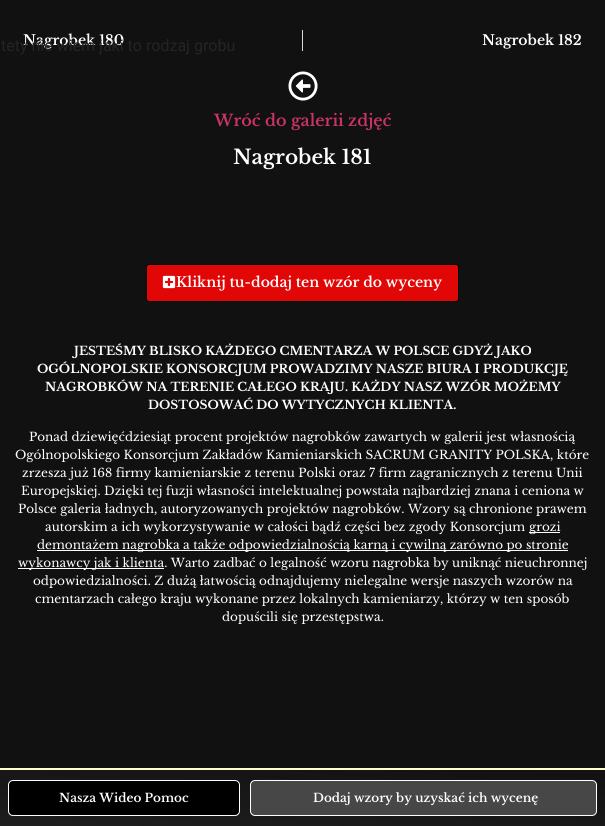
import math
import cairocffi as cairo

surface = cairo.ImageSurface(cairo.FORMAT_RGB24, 605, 826)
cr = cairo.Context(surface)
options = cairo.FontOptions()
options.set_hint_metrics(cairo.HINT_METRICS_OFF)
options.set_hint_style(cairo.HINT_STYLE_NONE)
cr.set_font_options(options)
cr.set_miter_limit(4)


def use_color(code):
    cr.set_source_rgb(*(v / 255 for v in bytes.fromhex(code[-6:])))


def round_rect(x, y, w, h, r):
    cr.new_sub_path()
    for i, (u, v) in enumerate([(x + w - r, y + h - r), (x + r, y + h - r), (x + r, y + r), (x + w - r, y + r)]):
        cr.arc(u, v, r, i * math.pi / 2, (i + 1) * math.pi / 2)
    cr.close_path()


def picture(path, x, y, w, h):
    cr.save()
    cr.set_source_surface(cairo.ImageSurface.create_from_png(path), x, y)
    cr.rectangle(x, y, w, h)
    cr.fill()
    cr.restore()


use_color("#111111")
cr.paint()
cr.select_font_face("Libre Baskerville SemiBold")
cr.set_font_size(14)
use_color("#ffffff")
cr.move_to(23, 45)
cr.show_text("Nagrobek 180")
use_color("#d5d8dc")
cr.rectangle(302, 30, 1, 21)
cr.fill()
use_color("#ffffff")
cr.move_to(482, 45)
cr.show_text("Nagrobek 182")
picture("img1.png", 288, 71, 30, 30)
cr.set_font_size(16)
use_color("#cc3366")
cr.move_to(214, 126)
cr.show_text("Wróć do galerii zdjęć")
cr.set_font_size(20)
use_color("#ffffff")
cr.move_to(233, 164)
cr.show_text("Nagrobek 181")
use_color("#e20707")
round_rect(146.5, 264.5, 312, 37, 2.5)
cr.fill_preserve()
use_color("#000000")
cr.set_line_width(1)
cr.stroke()
picture("img2.png", 162, 275, 14, 14)
cr.set_font_size(14)
use_color("#ffffff")
cr.move_to(176, 287)
cr.show_text("Kliknij tu-dodaj ten wzór do wyceny")
cr.select_font_face("Libre Baskerville", cairo.FONT_SLANT_NORMAL, cairo.FONT_WEIGHT_BOLD)
cr.set_font_size(12)
cr.move_to(74, 355)
cr.show_text("JESTEŚMY BLISKO KAŻDEGO CMENTARZA W POLSCE GDYŻ JAKO")
cr.move_to(37, 373)
cr.show_text("OGÓLNOPOLSKIE KONSORCJUM PROWADZIMY NASZE BIURA I PRODUKCJĘ")
cr.move_to(45, 391)
cr.show_text("NAGROBKÓW NA TERENIE CAŁEGO KRAJU. KAŻDY NASZ WZÓR MOŻEMY")
cr.move_to(148, 409)
cr.show_text("DOSTOSOWAĆ DO WYTYCZNYCH KLIENTA.")
cr.select_font_face("Libre Baskerville")
cr.move_to(29, 441)
cr.show_text("Ponad dziewięćdziesiąt procent projektów nagrobków zawartych w galerii jest własnością")
cr.move_to(15, 459)
cr.show_text("Ogólnopolskiego Konsorcjum Zakładów Kamieniarskich SACRUM GRANITY POLSKA, które")
cr.move_to(22, 477)
cr.show_text("zrzesza już 168 firmy kamieniarskie z terenu Polski oraz 7 firm zagranicznych z terenu Unii")
cr.move_to(21, 495)
cr.show_text("Europejskiej. Dzięki tej fuzji własności intelektualnej powstała najbardziej znana i ceniona w")
cr.move_to(18, 513)
cr.show_text("Polsce galeria ładnych, autoryzowanych projektów nagrobków. Wzory są chronione prawem")
cr.move_to(45, 531)
cr.show_text("autorskim a ich wykorzystywanie w całości bądź części bez zgody Konsorcjum")
cr.rectangle(529, 532, 31, 1)
cr.fill()
cr.move_to(529, 531)
cr.show_text("grozi")
cr.rectangle(37, 550, 531, 1)
cr.fill()
cr.move_to(37, 549)
cr.show_text("demontażem nagrobka a także odpowiedzialnością karną i cywilną zarówno po stronie")
cr.rectangle(18, 568, 146, 1)
cr.fill()
cr.move_to(18, 567)
cr.show_text("wykonawcy jak i klienta. Warto zadbać o legalność wzoru nagrobka by uniknąć nieuchronnej")
cr.move_to(33, 585)
cr.show_text("odpowiedzialności. Z dużą łatwością odnajdujemy nielegalne wersje naszych wzorów na")
cr.move_to(35, 603)
cr.show_text("cmentarzach całego kraju wykonane przez lokalnych kamieniarzy, którzy w ten sposób")
cr.move_to(222, 621)
cr.show_text("dopuścili się przestępstwa.")
gradient = cairo.LinearGradient(298, 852, 307, 744)
gradient.add_color_stop_rgba(0, 0.118, 0.118, 0.118, 1)
gradient.add_color_stop_rgba(1, 0.067, 0.067, 0.067, 1)
cr.set_source(gradient)
cr.rectangle(0, 770, 605, 56)
cr.fill()
use_color("#ffffcb")
cr.rectangle(0, 768, 605, 2)
cr.fill()
cr.select_font_face("Roboto")
cr.set_font_size(16)
use_color("#242424")
cr.move_to(1, 51)
cr.show_text("tety nie wiem jaki to rodzaj grobu")
use_color("#474747")
round_rect(250.5, 780.5, 346, 35, 4.5)
cr.fill_preserve()
use_color("#ffffff")
cr.stroke()
cr.select_font_face("Libre Baskerville SemiBold")
cr.set_font_size(12)
cr.move_to(313, 802)
cr.show_text("Dodaj wzory by uzyskać ich wycenę")
use_color("#000000")
round_rect(8.5, 780.5, 231, 35, 4.5)
cr.fill_preserve()
use_color("#ffffff")
cr.stroke()
cr.move_to(59, 802)
cr.show_text("Nasza Wideo Pomoc")
surface.write_to_png("result.png")
